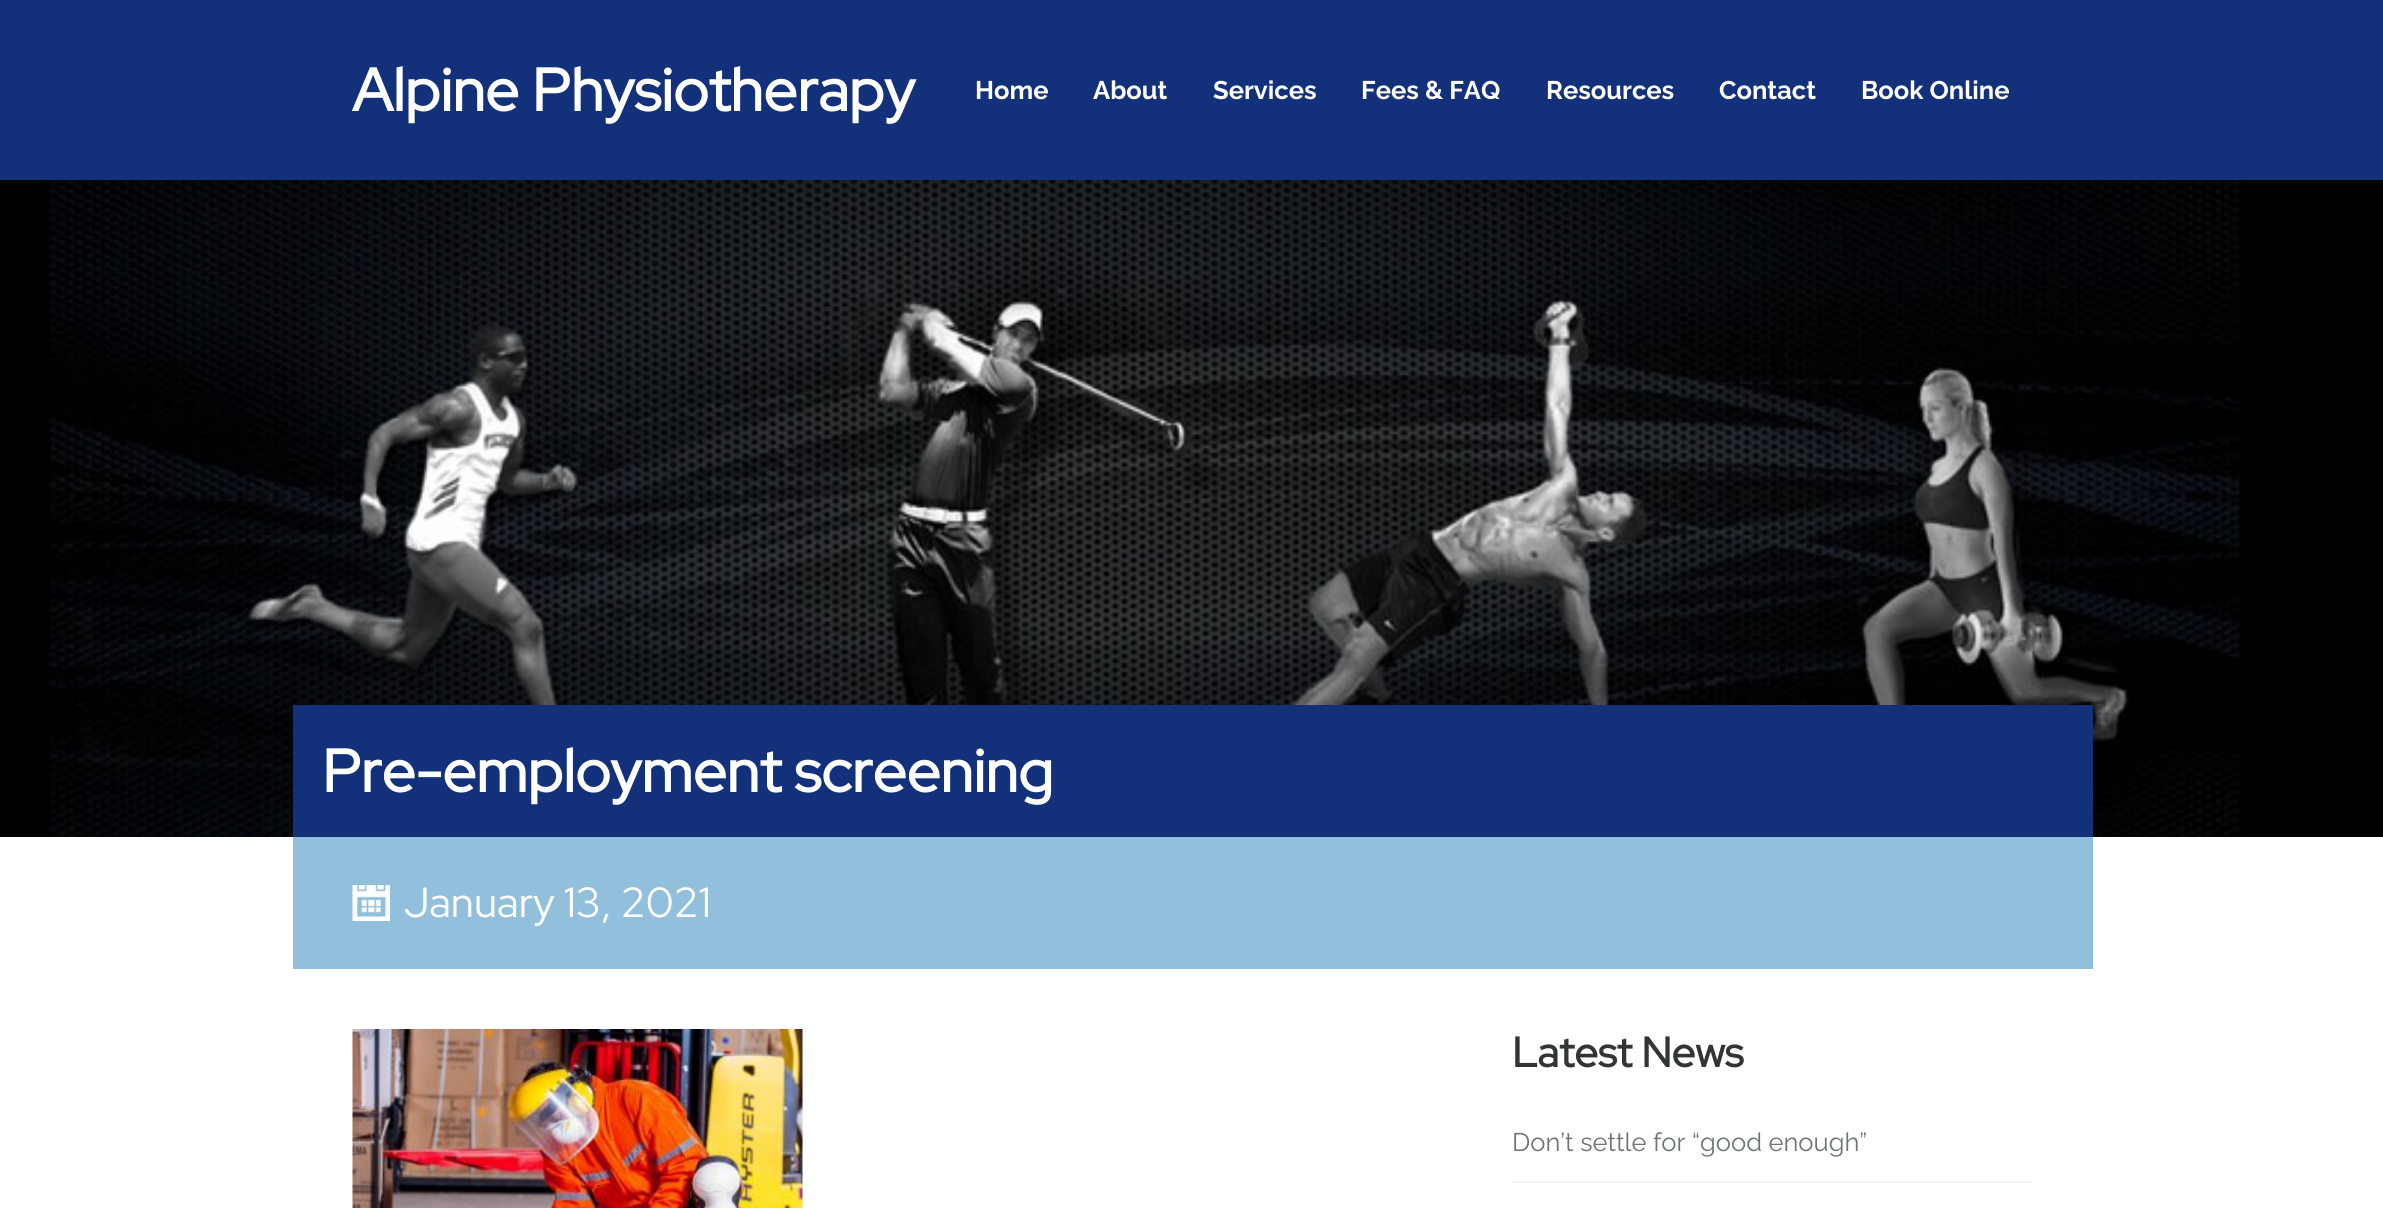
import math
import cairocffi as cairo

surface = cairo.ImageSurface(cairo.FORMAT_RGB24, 2383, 1208)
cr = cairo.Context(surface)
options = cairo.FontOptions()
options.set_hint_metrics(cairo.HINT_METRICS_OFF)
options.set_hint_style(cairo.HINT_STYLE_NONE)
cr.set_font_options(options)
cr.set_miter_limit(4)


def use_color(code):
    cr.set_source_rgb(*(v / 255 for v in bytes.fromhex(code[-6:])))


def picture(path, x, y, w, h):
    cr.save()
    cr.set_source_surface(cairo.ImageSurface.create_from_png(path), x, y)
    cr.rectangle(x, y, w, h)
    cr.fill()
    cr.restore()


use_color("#ffffff")
cr.paint()
use_color("#13307b")
cr.rectangle(0, 0, 2383, 180)
cr.fill()
cr.select_font_face("Red Hat Display", cairo.FONT_SLANT_NORMAL, cairo.FONT_WEIGHT_BOLD)
cr.set_font_size(60)
use_color("#ffffff")
cr.move_to(352, 111)
cr.show_text("Alpine Physiotherapy")
cr.select_font_face("Raleway", cairo.FONT_SLANT_NORMAL, cairo.FONT_WEIGHT_BOLD)
cr.set_font_size(25.5)
cr.move_to(975, 99)
cr.show_text("Home")
cr.move_to(1093, 99)
cr.show_text("About")
cr.move_to(1213, 99)
cr.show_text("Services")
cr.move_to(1361, 99)
cr.show_text("Fees & FAQ")
cr.move_to(1546, 99)
cr.show_text("Resources")
cr.move_to(1719, 99)
cr.show_text("Contact")
cr.move_to(1861, 99)
cr.show_text("Book Online")
picture("img1.png", 0, 180, 2383, 657)
use_color("#13307b")
cr.rectangle(293, 705, 1800, 132)
cr.fill()
cr.select_font_face("Red Hat Display", cairo.FONT_SLANT_NORMAL, cairo.FONT_WEIGHT_BOLD)
cr.set_font_size(60)
use_color("#ffffff")
cr.move_to(322, 792)
cr.show_text("Pre-employment screening")
use_color("#92bfdb")
cr.rectangle(293, 837, 1800, 132)
cr.fill()
picture("img2.png", 352, 885, 38, 36)
cr.select_font_face("Red Hat Display")
cr.set_font_size(42)
use_color("#ffffff")
cr.move_to(404, 917)
cr.show_text("January 13, 2021")
picture("img3.png", 352, 1029, 451, 179)
cr.select_font_face("Red Hat Display", cairo.FONT_SLANT_NORMAL, cairo.FONT_WEIGHT_BOLD)
use_color("#313536")
cr.move_to(1512, 1067)
cr.show_text("Latest News")
use_color("#f5f1f0")
cr.rectangle(1512, 1181, 519, 2)
cr.fill()
cr.select_font_face("Raleway")
cr.set_font_size(25.5)
use_color("#6c7476")
cr.move_to(1512, 1151)
cr.show_text("Don’t settle for “good enough”")
surface.write_to_png("result.png")
